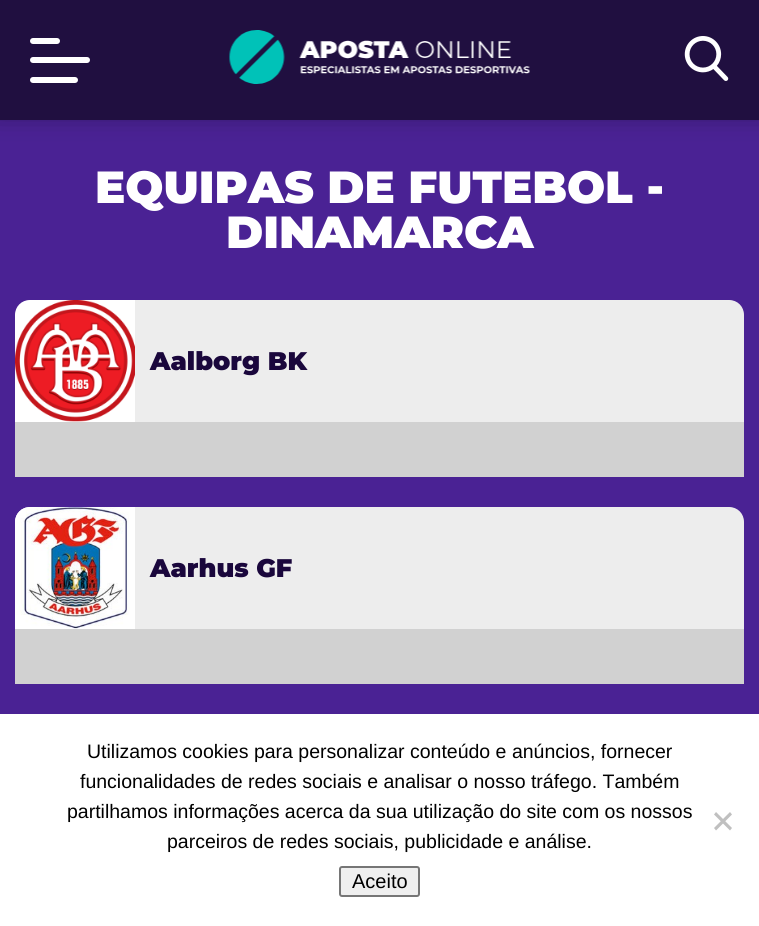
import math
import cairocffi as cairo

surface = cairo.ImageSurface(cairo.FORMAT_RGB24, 759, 926)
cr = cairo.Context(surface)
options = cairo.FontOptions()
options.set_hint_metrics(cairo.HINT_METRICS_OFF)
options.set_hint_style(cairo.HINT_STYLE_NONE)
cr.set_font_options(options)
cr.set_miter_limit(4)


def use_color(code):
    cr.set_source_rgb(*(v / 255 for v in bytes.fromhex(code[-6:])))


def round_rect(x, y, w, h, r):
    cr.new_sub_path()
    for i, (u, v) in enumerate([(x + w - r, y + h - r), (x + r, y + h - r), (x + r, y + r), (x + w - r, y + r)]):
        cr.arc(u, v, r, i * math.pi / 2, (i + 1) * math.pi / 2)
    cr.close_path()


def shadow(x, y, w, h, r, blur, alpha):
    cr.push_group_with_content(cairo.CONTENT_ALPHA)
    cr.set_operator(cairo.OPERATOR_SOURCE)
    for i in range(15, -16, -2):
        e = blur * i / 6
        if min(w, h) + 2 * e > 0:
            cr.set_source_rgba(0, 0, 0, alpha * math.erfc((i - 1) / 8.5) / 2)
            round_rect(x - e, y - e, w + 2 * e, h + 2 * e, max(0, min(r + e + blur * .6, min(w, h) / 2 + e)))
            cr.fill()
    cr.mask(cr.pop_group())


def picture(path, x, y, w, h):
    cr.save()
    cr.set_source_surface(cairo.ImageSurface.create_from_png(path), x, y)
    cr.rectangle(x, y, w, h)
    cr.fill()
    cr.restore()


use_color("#4a2294")
cr.paint()
use_color("#000000")
shadow(-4, -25, 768, 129, 0, 15, 0.83)
use_color("#200f40")
cr.rectangle(0, 0, 759, 120)
cr.fill()
use_color("#ffffff")
round_rect(30, 38, 30, 6, 3)
cr.fill()
round_rect(30, 57, 60, 6, 3)
cr.fill()
round_rect(30, 77, 48, 6, 3)
cr.fill()
picture("img1.png", 229, 30, 301, 54)
picture("img2.png", 684, 36, 45, 45)
cr.select_font_face("Montserrat Black")
cr.set_font_size(45)
cr.move_to(95, 203)
cr.show_text("EQUIPAS DE FUTEBOL -")
cr.move_to(226, 248)
cr.show_text("DINAMARCA")
cr.new_path()
cr.move_to(30, 300)
cr.line_to(135, 300)
cr.line_to(135, 422)
cr.line_to(15, 422)
cr.line_to(15, 315)
cr.curve_to(15, 306.5, 21.5, 300, 30, 300)
cr.close_path()
cr.fill()
picture("img3.png", 15, 300, 120, 122)
use_color("#ededed")
cr.new_path()
cr.move_to(135, 300)
cr.line_to(729, 300)
cr.curve_to(737.5, 300, 744, 306.5, 744, 315)
cr.line_to(744, 422)
cr.line_to(135, 422)
cr.close_path()
cr.fill()
cr.set_font_size(25.5)
use_color("#1a073c")
cr.move_to(150, 370)
cr.show_text("Aalborg BK")
use_color("#d1d1d1")
cr.rectangle(15, 422, 729, 55)
cr.fill()
use_color("#ffffff")
cr.new_path()
cr.move_to(30, 507)
cr.line_to(135, 507)
cr.line_to(135, 629)
cr.line_to(15, 629)
cr.line_to(15, 522)
cr.curve_to(15, 513.5, 21.5, 507, 30, 507)
cr.close_path()
cr.fill()
picture("img4.png", 15, 507, 115, 122)
use_color("#ededed")
cr.new_path()
cr.move_to(135, 507)
cr.line_to(729, 507)
cr.curve_to(737.5, 507, 744, 513.5, 744, 522)
cr.line_to(744, 629)
cr.line_to(135, 629)
cr.close_path()
cr.fill()
use_color("#1a073c")
cr.move_to(150, 577)
cr.show_text("Aarhus GF")
use_color("#d1d1d1")
cr.rectangle(15, 629, 729, 55)
cr.fill()
use_color("#ffffff")
cr.rectangle(0, 714, 759, 212)
cr.fill()
cr.select_font_face("Liberation Sans")
cr.set_font_size(19.5)
use_color("#000000")
cr.move_to(87, 758)
cr.show_text("Utilizamos cookies para personalizar conteúdo e anúncios, fornecer")
cr.move_to(80, 788)
cr.show_text("funcionalidades de redes sociais e analisar o nosso tráfego. Também")
cr.move_to(67, 818)
cr.show_text("partilhamos informações acerca da sua utilização do site com os nossos")
cr.move_to(167, 848)
cr.show_text("parceiros de redes sociais, publicidade e análise.")
use_color("#c0c0c0")
cr.new_path()
cr.move_to(730, 812)
cr.line_to(732, 814.5)
cr.line_to(716, 830.5)
cr.line_to(714, 828)
cr.close_path()
cr.fill()
cr.new_path()
cr.move_to(714, 814.5)
cr.line_to(716, 812)
cr.line_to(732, 828)
cr.line_to(730, 830.5)
cr.close_path()
cr.fill()
use_color("#efefef")
round_rect(340, 867, 79, 29, 2)
cr.fill_preserve()
use_color("#767676")
cr.stroke()
cr.set_font_size(20)
use_color("#000000")
cr.move_to(352, 888)
cr.show_text("Aceito")
surface.write_to_png("result.png")
